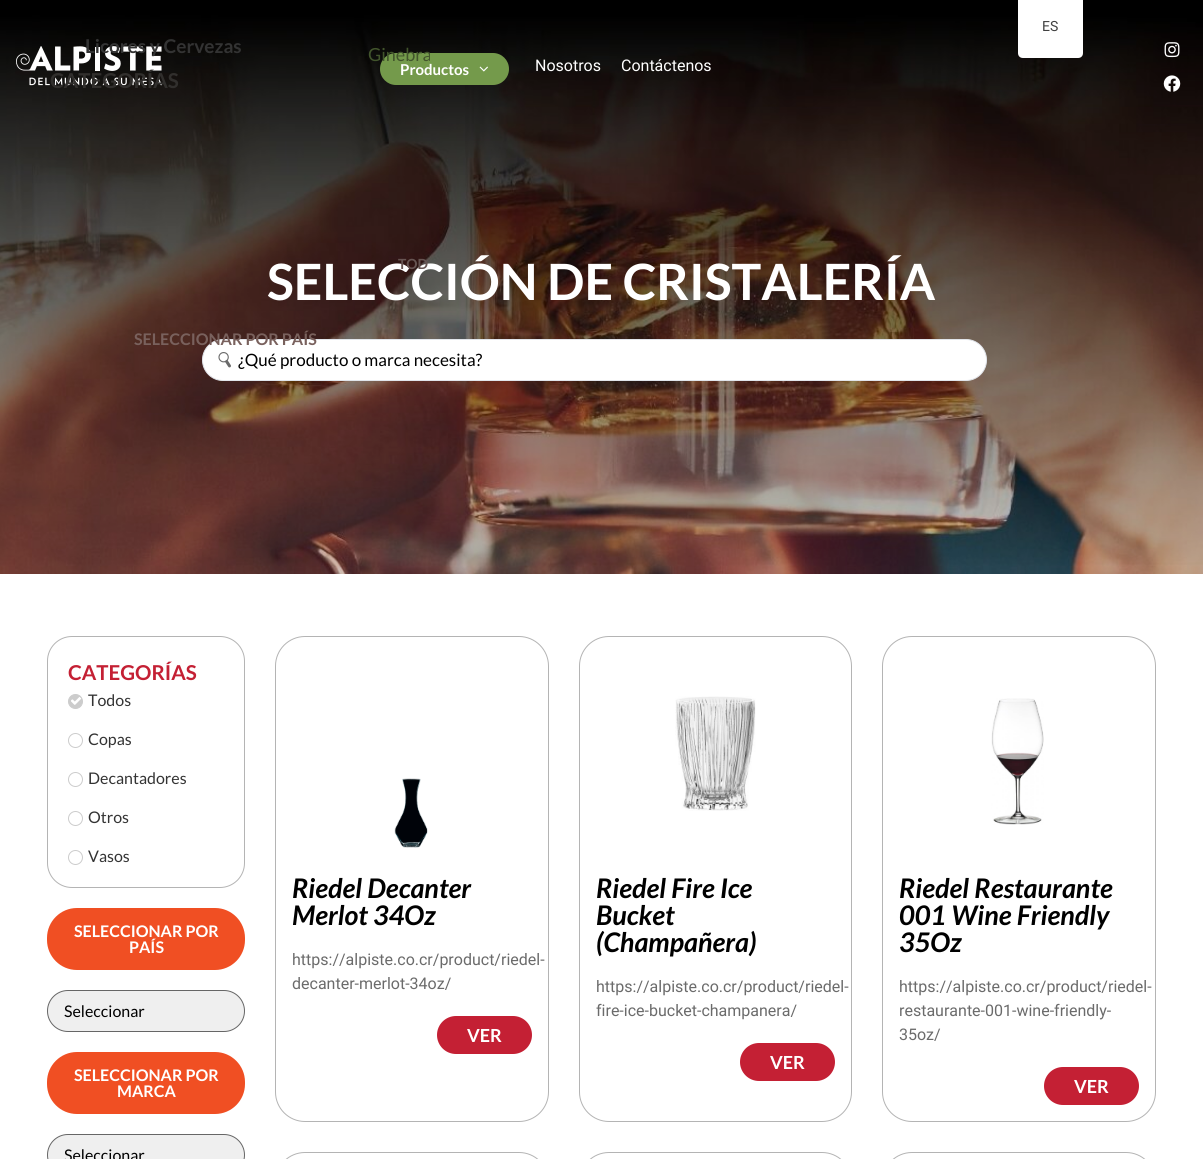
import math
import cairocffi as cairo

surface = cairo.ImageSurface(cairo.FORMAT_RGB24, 1203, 1159)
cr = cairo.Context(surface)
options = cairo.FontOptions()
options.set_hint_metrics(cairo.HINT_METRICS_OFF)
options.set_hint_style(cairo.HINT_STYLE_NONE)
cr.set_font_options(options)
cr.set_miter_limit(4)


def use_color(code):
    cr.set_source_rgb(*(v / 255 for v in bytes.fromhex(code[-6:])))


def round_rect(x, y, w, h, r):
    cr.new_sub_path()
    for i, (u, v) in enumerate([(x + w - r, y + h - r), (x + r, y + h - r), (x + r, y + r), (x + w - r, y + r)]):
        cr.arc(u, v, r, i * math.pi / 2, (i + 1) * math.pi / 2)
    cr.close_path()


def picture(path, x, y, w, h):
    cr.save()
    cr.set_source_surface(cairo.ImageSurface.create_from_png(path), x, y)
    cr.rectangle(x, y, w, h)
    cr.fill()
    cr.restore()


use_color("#ffffff")
cr.paint()
picture("img5.png", 0, 0, 1203, 574)
use_color("#ffffff")
cr.new_path()
cr.move_to(1018, 0)
cr.line_to(1083, 0)
cr.line_to(1083, 53)
cr.curve_to(1083, 56, 1081, 58, 1078, 58)
cr.line_to(1023, 58)
cr.curve_to(1020, 58, 1018, 56, 1018, 53)
cr.close_path()
cr.fill()
cr.select_font_face("Roboto")
cr.set_font_size(14)
use_color("#404040")
cr.move_to(1042, 31)
cr.show_text("ES")
picture("img1.png", 16, 46, 146, 40)
cr.select_font_face("Lato", cairo.FONT_SLANT_NORMAL, cairo.FONT_WEIGHT_BOLD)
cr.set_font_size(19)
use_color("#333333")
cr.move_to(85, 53)
cr.show_text("Licores y Cervezas")
use_color("#749a4b")
round_rect(380, 53, 129, 32, 16)
cr.fill()
cr.save()
cr.rectangle(286, 20, 144, 286)
cr.clip()
cr.select_font_face("Lato")
cr.set_font_size(18)
use_color("#42552c")
cr.move_to(368, 61)
cr.show_text("Ginebra")
cr.restore()
cr.set_font_size(50)
use_color("#ffffff")
cr.move_to(267, 300)
cr.show_text("SELECCIÓN DE CRISTALERÍA")
cr.set_font_size(14)
use_color("#675553")
cr.move_to(398, 269)
cr.show_text("TOD")
cr.set_font_size(15)
use_color("#ffffff")
cr.move_to(400, 75)
cr.show_text("Productos")
picture("img2.png", 479, 66, 9, 6)
cr.select_font_face("Roboto")
cr.set_font_size(16)
cr.move_to(535, 71)
cr.show_text("Nosotros")
cr.move_to(621, 71)
cr.show_text("Contáctenos")
picture("img3.png", 1164, 42, 16, 16)
picture("img4.png", 1163, 75, 18, 17)
cr.select_font_face("Lato", cairo.FONT_SLANT_NORMAL, cairo.FONT_WEIGHT_BOLD)
cr.set_font_size(20.5)
use_color("#312f2d")
cr.move_to(50, 88)
cr.show_text("CATEGORÍAS")
use_color("#ffffff")
round_rect(202.5, 339.5, 784, 41, 20.5)
cr.fill_preserve()
use_color("#e1e5eb")
cr.set_line_width(1)
cr.stroke()
cr.set_font_size(16)
use_color("#79615d")
cr.move_to(134, 345)
cr.show_text("SELECCIONAR POR PAÍS")
picture("img6.png", 218, 352, 13, 16)
cr.select_font_face("Lato")
cr.set_font_size(17)
use_color("#000000")
cr.move_to(238, 366)
cr.show_text("¿Qué producto o marca necesita?")
round_rect(47.5, 636.5, 197, 251, 24.5)
use_color("#b4b4b4")
cr.stroke()
cr.select_font_face("Lato", cairo.FONT_SLANT_NORMAL, cairo.FONT_WEIGHT_BOLD)
cr.set_font_size(20.5)
use_color("#c42034")
cr.move_to(68, 680)
cr.show_text("CATEGORÍAS")
use_color("#cccccc")
cr.new_path()
cr.arc(75.5, 701.5, 7, 0, 2 * math.pi)
cr.fill_preserve()
cr.stroke()
picture("img7.png", 71, 697, 10, 8)
cr.select_font_face("Lato")
cr.set_font_size(16)
use_color("#333333")
cr.move_to(88, 706)
cr.show_text("Todos")
cr.new_path()
cr.arc(75.5, 740.5, 7, 0, 2 * math.pi)
use_color("#cccccc")
cr.stroke()
use_color("#333333")
cr.move_to(88, 745)
cr.show_text("Copas")
cr.new_path()
cr.arc(75.5, 779.5, 7, 0, 2 * math.pi)
use_color("#cccccc")
cr.stroke()
use_color("#333333")
cr.move_to(88, 784)
cr.show_text("Decantadores")
cr.new_path()
cr.arc(75.5, 818.5, 7, 0, 2 * math.pi)
use_color("#cccccc")
cr.stroke()
use_color("#333333")
cr.move_to(88, 823)
cr.show_text("Otros")
cr.new_path()
cr.arc(75.5, 857.5, 7, 0, 2 * math.pi)
use_color("#cccccc")
cr.stroke()
use_color("#333333")
cr.move_to(88, 862)
cr.show_text("Vasos")
use_color("#f04f23")
round_rect(47, 908, 198, 62, 30)
cr.fill()
cr.select_font_face("Lato", cairo.FONT_SLANT_NORMAL, cairo.FONT_WEIGHT_BOLD)
use_color("#ffffff")
cr.move_to(74, 937)
cr.show_text("SELECCIONAR POR")
cr.move_to(129, 953)
cr.show_text("PAÍS")
use_color("#efefef")
round_rect(47.5, 990.5, 197, 41, 20.5)
cr.fill_preserve()
use_color("#666666")
cr.stroke()
cr.select_font_face("Lato")
use_color("#000000")
cr.move_to(64, 1017)
cr.show_text("Seleccionar")
use_color("#f04f23")
round_rect(47, 1052, 198, 62, 30)
cr.fill()
cr.select_font_face("Lato", cairo.FONT_SLANT_NORMAL, cairo.FONT_WEIGHT_BOLD)
use_color("#ffffff")
cr.move_to(74, 1081)
cr.show_text("SELECCIONAR POR")
cr.move_to(117, 1097)
cr.show_text("MARCA")
use_color("#efefef")
round_rect(47.5, 1134.5, 197, 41, 20.5)
cr.fill_preserve()
use_color("#666666")
cr.stroke()
cr.select_font_face("Lato")
use_color("#000000")
cr.move_to(64, 1161)
cr.show_text("Seleccionar")
round_rect(275.5, 636.5, 273, 485, 29.5)
use_color("#b4b4b4")
cr.stroke()
picture("img8.png", 394, 778, 34, 70)
cr.select_font_face("Lato", cairo.FONT_SLANT_ITALIC, cairo.FONT_WEIGHT_BOLD)
cr.set_font_size(27)
use_color("#000000")
cr.move_to(292, 898)
cr.show_text("Riedel Decanter")
cr.move_to(292, 925)
cr.show_text("Merlot 34Oz")
cr.select_font_face("Roboto")
cr.set_font_size(16)
use_color("#6b6b6b")
cr.move_to(292, 965)
cr.show_text("https://alpiste.co.cr/product/riedel-")
cr.move_to(292, 989)
cr.show_text("decanter-merlot-34oz/")
use_color("#c42034")
round_rect(437, 1016, 95, 38, 19)
cr.fill()
cr.select_font_face("Lato", cairo.FONT_SLANT_NORMAL, cairo.FONT_WEIGHT_BOLD)
cr.set_font_size(18)
use_color("#ffffff")
cr.move_to(467, 1042)
cr.show_text("VER")
round_rect(579.5, 636.5, 272, 485, 29.5)
use_color("#b4b4b4")
cr.stroke()
picture("img9.png", 675, 696, 81, 115)
cr.select_font_face("Lato", cairo.FONT_SLANT_ITALIC, cairo.FONT_WEIGHT_BOLD)
cr.set_font_size(27)
use_color("#000000")
cr.move_to(596, 898)
cr.show_text("Riedel Fire Ice")
cr.move_to(596, 925)
cr.show_text("Bucket")
cr.move_to(596, 952)
cr.show_text("(Champañera)")
cr.select_font_face("Roboto")
cr.set_font_size(16)
use_color("#6b6b6b")
cr.move_to(596, 992)
cr.show_text("https://alpiste.co.cr/product/riedel-")
cr.move_to(596, 1016)
cr.show_text("fire-ice-bucket-champanera/")
use_color("#c42034")
round_rect(740, 1043, 95, 38, 19)
cr.fill()
cr.select_font_face("Lato", cairo.FONT_SLANT_NORMAL, cairo.FONT_WEIGHT_BOLD)
cr.set_font_size(18)
use_color("#ffffff")
cr.move_to(770, 1069)
cr.show_text("VER")
round_rect(882.5, 636.5, 273, 485, 29.5)
use_color("#b4b4b4")
cr.stroke()
picture("img10.png", 991, 698, 53, 127)
cr.select_font_face("Lato", cairo.FONT_SLANT_ITALIC, cairo.FONT_WEIGHT_BOLD)
cr.set_font_size(27)
use_color("#000000")
cr.move_to(899, 898)
cr.show_text("Riedel Restaurante")
cr.move_to(899, 925)
cr.show_text("001 Wine Friendly")
cr.move_to(899, 952)
cr.show_text("35Oz")
cr.select_font_face("Roboto")
cr.set_font_size(16)
use_color("#6b6b6b")
cr.move_to(899, 992)
cr.show_text("https://alpiste.co.cr/product/riedel-")
cr.move_to(899, 1016)
cr.show_text("restaurante-001-wine-friendly-")
cr.move_to(899, 1040)
cr.show_text("35oz/")
use_color("#c42034")
round_rect(1044, 1067, 95, 38, 19)
cr.fill()
cr.select_font_face("Lato", cairo.FONT_SLANT_NORMAL, cairo.FONT_WEIGHT_BOLD)
cr.set_font_size(18)
use_color("#ffffff")
cr.move_to(1074, 1093)
cr.show_text("VER")
round_rect(275.5, 1152.5, 273, 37, 29.5)
use_color("#b4b4b4")
cr.stroke()
round_rect(579.5, 1152.5, 272, 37, 29.5)
cr.stroke()
round_rect(882.5, 1152.5, 273, 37, 29.5)
cr.stroke()
surface.write_to_png("result.png")
